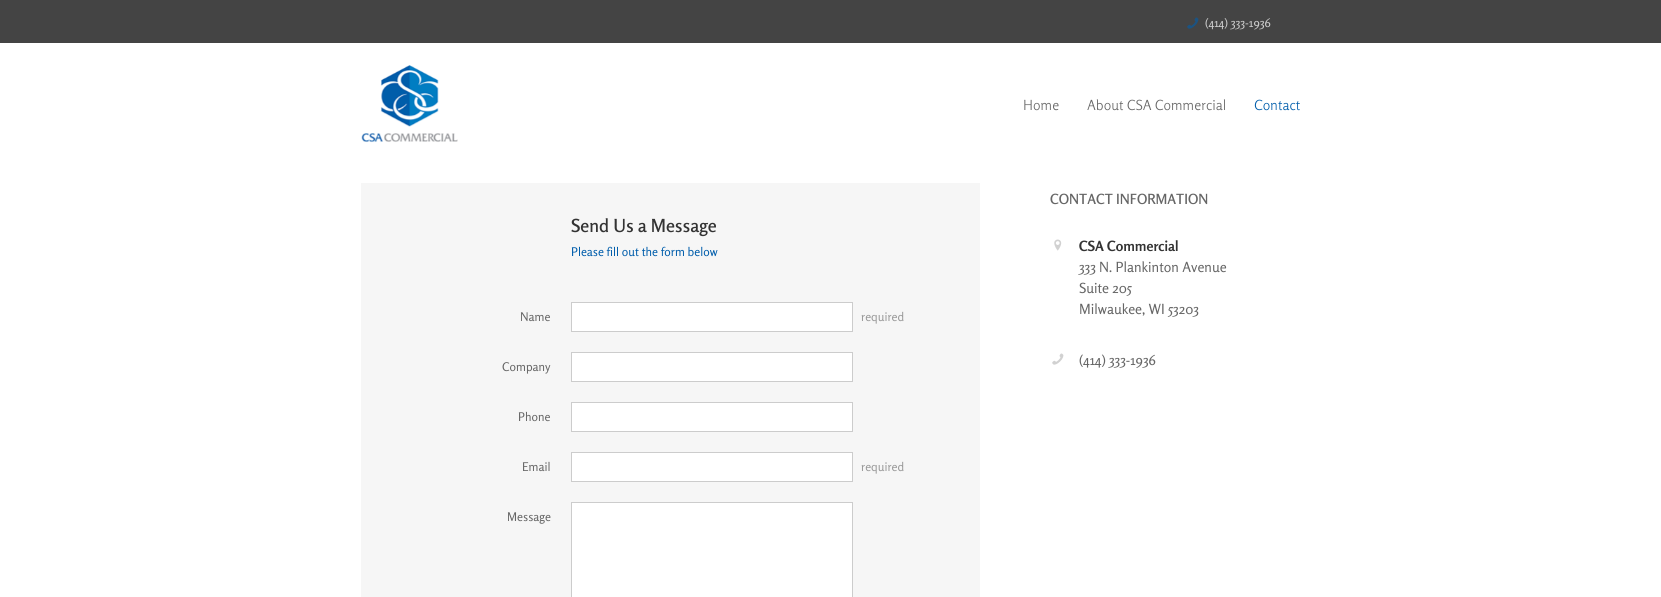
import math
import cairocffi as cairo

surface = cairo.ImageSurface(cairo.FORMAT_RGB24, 1661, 597)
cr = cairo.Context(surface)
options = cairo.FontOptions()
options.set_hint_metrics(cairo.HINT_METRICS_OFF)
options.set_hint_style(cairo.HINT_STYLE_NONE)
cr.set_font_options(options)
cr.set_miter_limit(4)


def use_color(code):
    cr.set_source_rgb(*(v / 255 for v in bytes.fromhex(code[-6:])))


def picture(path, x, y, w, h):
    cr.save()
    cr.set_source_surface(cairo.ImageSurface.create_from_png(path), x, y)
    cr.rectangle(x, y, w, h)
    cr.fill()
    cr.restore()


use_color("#ffffff")
cr.paint()
use_color("#444444")
cr.rectangle(0, 0, 1661, 43)
cr.fill()
picture("img1.png", 1187, 17, 12, 12)
cr.select_font_face("Rosario")
cr.set_font_size(12)
use_color("#cccccc")
cr.move_to(1205, 27)
cr.show_text("(414) 333-1936")
picture("img2.png", 361, 65, 97, 78)
cr.select_font_face("Rosario Light")
cr.set_font_size(14)
use_color("#666666")
cr.move_to(1023, 110)
cr.show_text("Home")
cr.move_to(1087, 110)
cr.show_text("About CSA Commercial")
use_color("#005dab")
cr.move_to(1254, 110)
cr.show_text("Contact")
use_color("#f6f6f6")
cr.rectangle(361, 183, 619, 414)
cr.fill()
cr.select_font_face("Rosario SemiBold")
cr.set_font_size(18)
use_color("#333333")
cr.move_to(571, 232)
cr.show_text("Send Us a Message")
cr.select_font_face("Rosario")
cr.set_font_size(12)
use_color("#005dab")
cr.move_to(571, 256)
cr.show_text("Please fill out the form below")
use_color("#666666")
cr.move_to(520, 321)
cr.show_text("Name")
use_color("#ffffff")
cr.rectangle(571.5, 302.5, 281, 29)
cr.fill_preserve()
use_color("#cccccc")
cr.set_line_width(1)
cr.stroke()
use_color("#999999")
cr.move_to(861, 321)
cr.show_text("required")
use_color("#666666")
cr.move_to(502, 371)
cr.show_text("Company")
use_color("#ffffff")
cr.rectangle(571.5, 352.5, 281, 29)
cr.fill_preserve()
use_color("#cccccc")
cr.stroke()
use_color("#666666")
cr.move_to(518, 421)
cr.show_text("Phone")
use_color("#ffffff")
cr.rectangle(571.5, 402.5, 281, 29)
cr.fill_preserve()
use_color("#cccccc")
cr.stroke()
use_color("#666666")
cr.move_to(522, 471)
cr.show_text("Email")
use_color("#ffffff")
cr.rectangle(571.5, 452.5, 281, 29)
cr.fill_preserve()
use_color("#cccccc")
cr.stroke()
use_color("#999999")
cr.move_to(861, 471)
cr.show_text("required")
use_color("#666666")
cr.move_to(507, 521)
cr.show_text("Message")
use_color("#ffffff")
cr.rectangle(571.5, 502.5, 281, 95)
cr.fill_preserve()
use_color("#cccccc")
cr.stroke()
cr.select_font_face("Rosario SemiBold")
cr.set_font_size(14)
use_color("#666666")
cr.move_to(1050, 204)
cr.show_text("CONTACT INFORMATION")
picture("img3.png", 1054, 239, 8, 12)
cr.select_font_face("Rosario", cairo.FONT_SLANT_NORMAL, cairo.FONT_WEIGHT_BOLD)
use_color("#333333")
cr.move_to(1079, 251)
cr.show_text("CSA Commercial")
cr.select_font_face("Rosario")
use_color("#666666")
cr.move_to(1079, 272)
cr.show_text("333 N. Plankinton Avenue")
cr.move_to(1079, 293)
cr.show_text("Suite 205")
cr.move_to(1079, 314)
cr.show_text("Milwaukee, WI 53203")
picture("img4.png", 1052, 353, 12, 12)
cr.move_to(1079, 365)
cr.show_text("(414) 333-1936")
surface.write_to_png("result.png")
